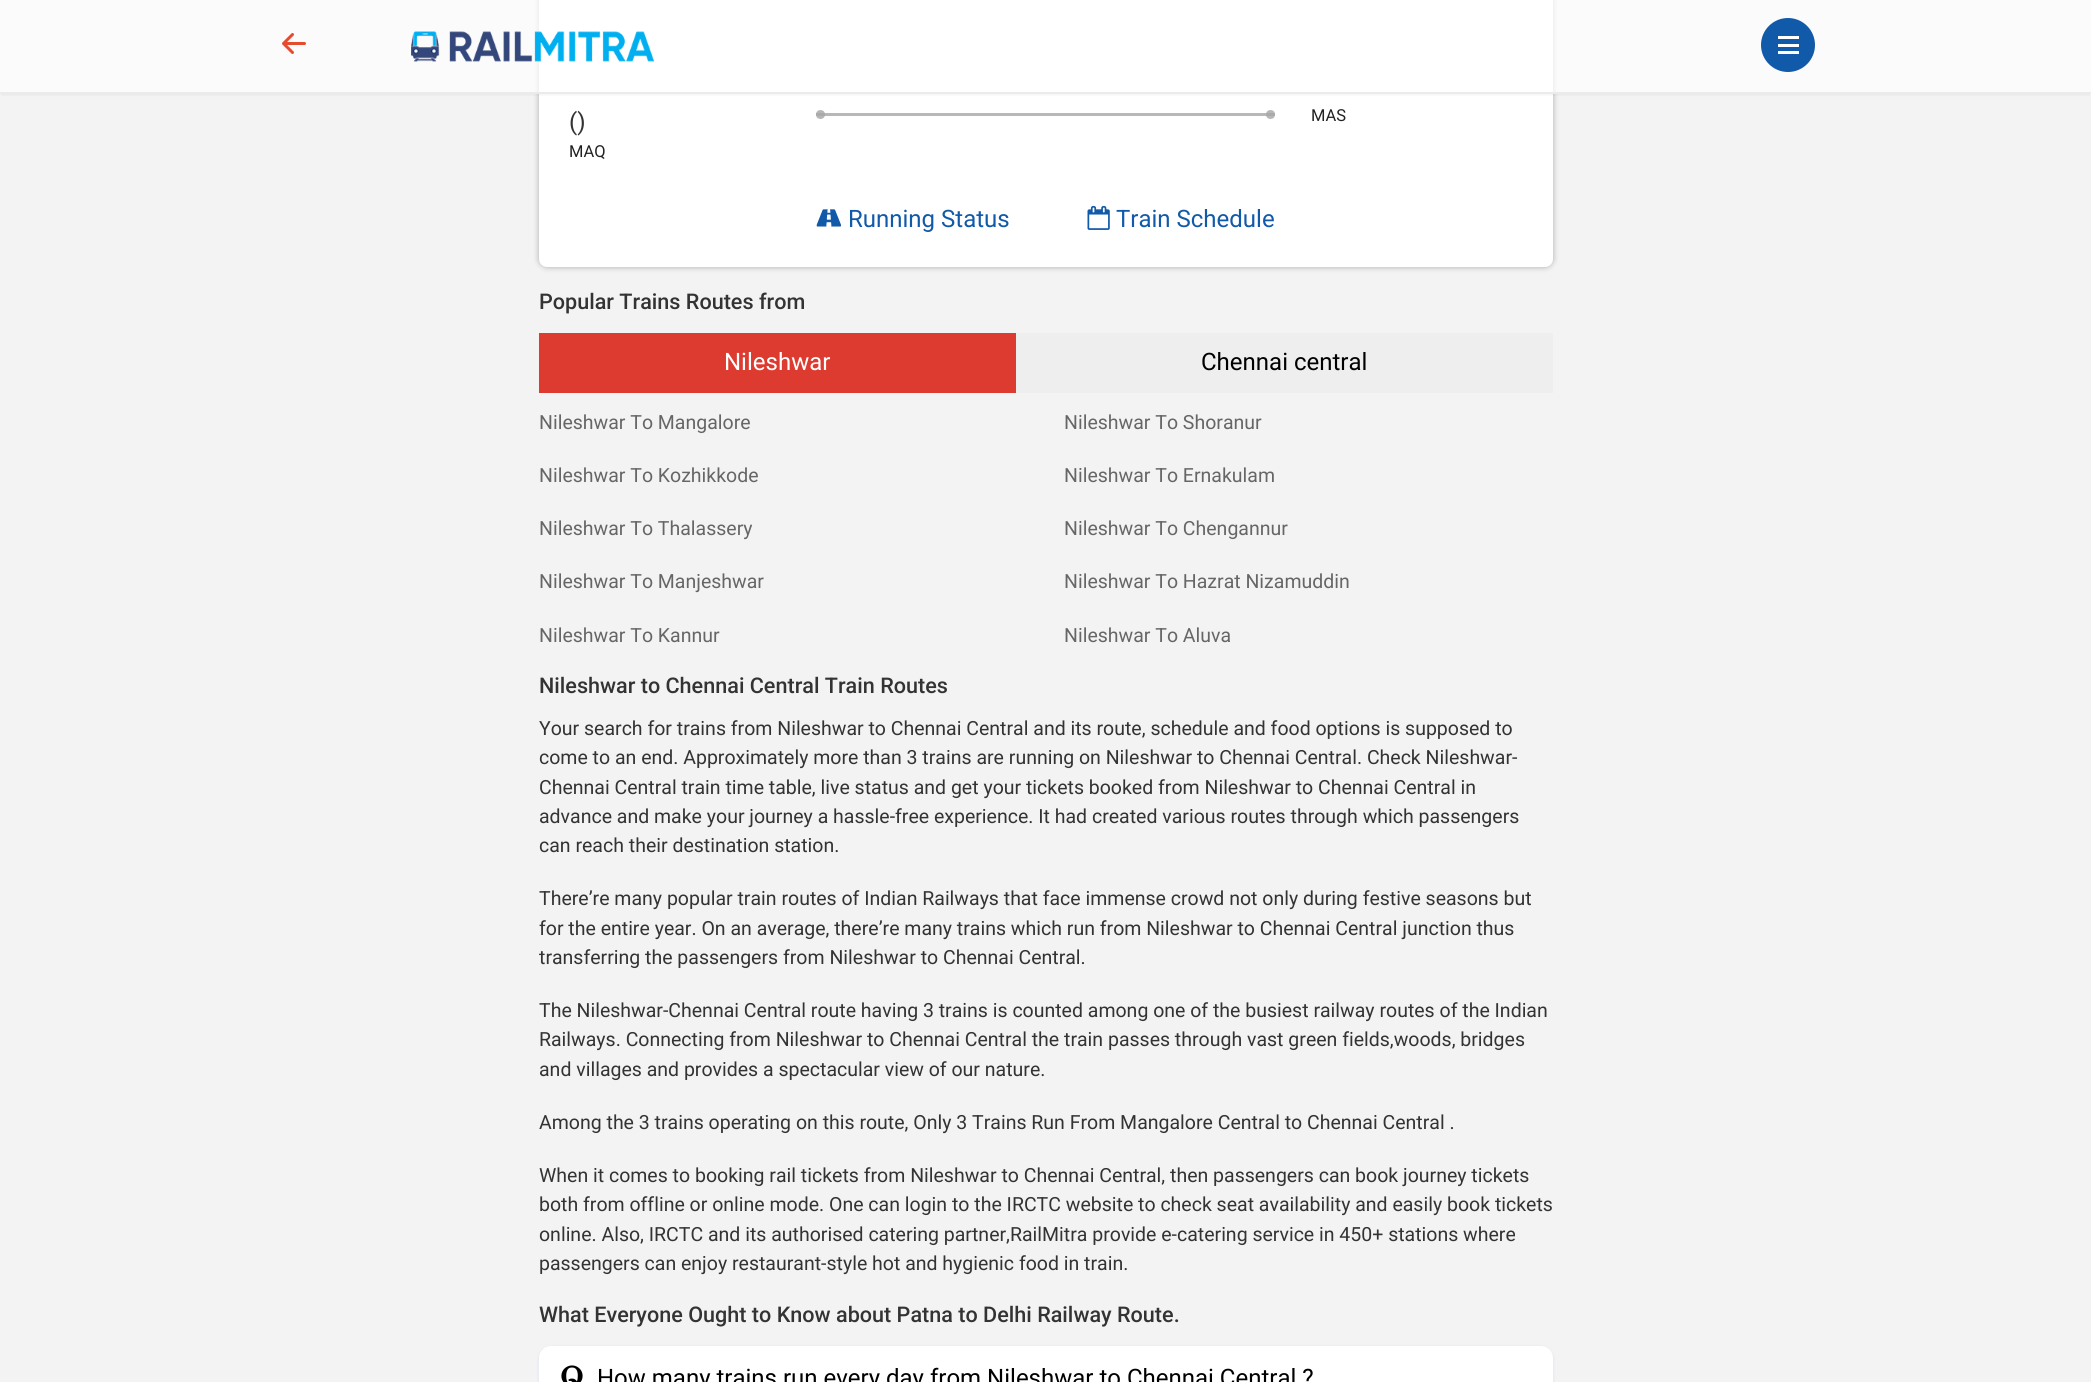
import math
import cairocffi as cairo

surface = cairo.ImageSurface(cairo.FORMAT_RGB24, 2091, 1382)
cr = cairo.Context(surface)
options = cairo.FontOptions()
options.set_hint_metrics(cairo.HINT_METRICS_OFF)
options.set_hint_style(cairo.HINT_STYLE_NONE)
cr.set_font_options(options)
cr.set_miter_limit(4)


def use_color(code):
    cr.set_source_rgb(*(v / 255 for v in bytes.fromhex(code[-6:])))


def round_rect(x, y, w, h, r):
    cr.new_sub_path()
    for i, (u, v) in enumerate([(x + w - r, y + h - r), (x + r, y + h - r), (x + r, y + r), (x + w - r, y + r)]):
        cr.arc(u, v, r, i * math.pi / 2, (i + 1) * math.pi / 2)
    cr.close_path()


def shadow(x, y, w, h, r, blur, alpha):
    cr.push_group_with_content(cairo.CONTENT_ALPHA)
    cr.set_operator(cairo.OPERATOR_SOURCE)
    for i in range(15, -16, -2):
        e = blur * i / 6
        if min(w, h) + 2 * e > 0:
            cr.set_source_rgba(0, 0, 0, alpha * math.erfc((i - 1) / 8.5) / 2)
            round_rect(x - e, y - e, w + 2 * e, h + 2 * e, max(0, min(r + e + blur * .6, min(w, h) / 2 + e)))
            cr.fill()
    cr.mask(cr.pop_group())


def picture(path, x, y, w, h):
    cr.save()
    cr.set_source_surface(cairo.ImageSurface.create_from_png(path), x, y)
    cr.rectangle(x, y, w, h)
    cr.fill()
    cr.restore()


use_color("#f3f3f3")
cr.paint()
use_color("#000000")
shadow(539, -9, 1014, 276, 8, 3, 0.3)
use_color("#ffffff")
round_rect(539, -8, 1014, 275, 8)
cr.fill()
cr.save()
cr.rectangle(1, 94, 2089, 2)
cr.clip()
use_color("#000000")
shadow(0, 0, 2091, 93, 0, 3, 0.1)
cr.restore()
cr.set_source_rgba(1, 1, 1, 0.7)
cr.rectangle(0, 0, 2091, 92)
cr.fill()
use_color("#ebebeb")
cr.rectangle(0, 92, 2091, 2)
cr.fill()
picture("img1.png", 282, 33, 24, 21)
picture("img2.png", 411, 31, 243, 31)
use_color("#1159a9")
cr.arc(1788, 45, 27, 0, 2 * math.pi)
cr.fill()
use_color("#ffffff")
cr.rectangle(1778, 36, 21, 3)
cr.fill()
cr.rectangle(1778, 44, 21, 3)
cr.fill()
cr.rectangle(1778, 51, 21, 3)
cr.fill()
cr.select_font_face("Roboto")
cr.set_font_size(24)
use_color("#333333")
cr.move_to(569, 130)
cr.show_text("()")
cr.set_font_size(16.5)
use_color("#222222")
cr.move_to(569, 157)
cr.show_text("MAQ")
use_color("#b8b8b8")
cr.rectangle(816, 113, 459, 3)
cr.fill()
cr.set_source_rgba(0.655, 0.655, 0.655, 0.81)
cr.arc(820.5, 114.5, 4.5, 0, 2 * math.pi)
cr.fill()
cr.arc(1270.5, 114.5, 4.5, 0, 2 * math.pi)
cr.fill()
use_color("#222222")
cr.move_to(1311, 121)
cr.show_text("MAS")
picture("img3.png", 816, 209, 25, 18)
cr.set_font_size(24)
use_color("#1159a9")
cr.move_to(848, 227)
cr.show_text("Running Status")
picture("img4.png", 1087, 205, 23, 25)
cr.move_to(1116, 227)
cr.show_text("Train Schedule")
cr.select_font_face("Roboto Medium")
cr.set_font_size(21.6)
use_color("#333333")
cr.move_to(539, 309)
cr.show_text("Popular Trains Routes from")
use_color("#de3b30")
cr.rectangle(539, 333, 477, 60)
cr.fill()
cr.select_font_face("Roboto")
cr.set_font_size(24)
use_color("#ffffff")
cr.move_to(724, 370)
cr.show_text("Nileshwar")
use_color("#eeeeee")
cr.rectangle(1016, 333, 537, 60)
cr.fill()
use_color("#000000")
cr.move_to(1201, 370)
cr.show_text("Chennai central")
cr.set_font_size(19.5)
use_color("#666666")
cr.move_to(539, 429)
cr.show_text("Nileshwar To Mangalore")
cr.move_to(539, 482)
cr.show_text("Nileshwar To Kozhikkode")
cr.move_to(539, 535)
cr.show_text("Nileshwar To Thalassery")
cr.move_to(539, 588)
cr.show_text("Nileshwar To Manjeshwar")
cr.move_to(539, 642)
cr.show_text("Nileshwar To Kannur")
cr.move_to(1064, 429)
cr.show_text("Nileshwar To Shoranur")
cr.move_to(1064, 482)
cr.show_text("Nileshwar To Ernakulam")
cr.move_to(1064, 535)
cr.show_text("Nileshwar To Chengannur")
cr.move_to(1064, 588)
cr.show_text("Nileshwar To Hazrat Nizamuddin")
cr.move_to(1064, 642)
cr.show_text("Nileshwar To Aluva")
cr.select_font_face("Roboto Medium")
cr.set_font_size(21.6)
use_color("#333333")
cr.move_to(539, 693)
cr.show_text("Nileshwar to Chennai Central Train Routes")
cr.select_font_face("Roboto")
cr.set_font_size(19.5)
cr.move_to(539, 735)
cr.show_text("Your search for trains from Nileshwar to Chennai Central and its route, schedule and food options is supposed to")
cr.move_to(539, 764)
cr.show_text("come to an end. Approximately more than 3 trains are running on Nileshwar to Chennai Central. Check Nileshwar-")
cr.move_to(539, 794)
cr.show_text("Chennai Central train time table, live status and get your tickets booked from Nileshwar to Chennai Central in")
cr.move_to(539, 823)
cr.show_text("advance and make your journey a hassle-free experience. It had created various routes through which passengers")
cr.move_to(539, 852)
cr.show_text("can reach their destination station.")
cr.move_to(539, 905)
cr.show_text("There’re many popular train routes of Indian Railways that face immense crowd not only during festive seasons but")
cr.move_to(539, 935)
cr.show_text("for the entire year. On an average, there’re many trains which run from Nileshwar to Chennai Central junction thus")
cr.move_to(539, 964)
cr.show_text("transferring the passengers from Nileshwar to Chennai Central.")
cr.move_to(539, 1017)
cr.show_text("The Nileshwar-Chennai Central route having 3 trains is counted among one of the busiest railway routes of the Indian")
cr.move_to(539, 1046)
cr.show_text("Railways. Connecting from Nileshwar to Chennai Central the train passes through vast green fields,woods, bridges")
cr.move_to(539, 1076)
cr.show_text("and villages and provides a spectacular view of our nature.")
cr.move_to(539, 1129)
cr.show_text("Among the 3 trains operating on this route, Only 3 Trains Run From Mangalore Central to Chennai Central .")
cr.move_to(539, 1182)
cr.show_text("When it comes to booking rail tickets from Nileshwar to Chennai Central, then passengers can book journey tickets")
cr.move_to(539, 1211)
cr.show_text("both from offline or online mode. One can login to the IRCTC website to check seat availability and easily book tickets")
cr.move_to(539, 1241)
cr.show_text("online. Also, IRCTC and its authorised catering partner,RailMitra provide e-catering service in 450+ stations where")
cr.move_to(539, 1270)
cr.show_text("passengers can enjoy restaurant-style hot and hygienic food in train.")
cr.select_font_face("Roboto Medium")
cr.set_font_size(21.6)
cr.move_to(539, 1322)
cr.show_text("What Everyone Ought to Know about Patna to Delhi Railway Route.")
use_color("#d7def4")
shadow(539, 1347, 1014, 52, 12, 1.5, 1)
use_color("#ffffff")
round_rect(539, 1346, 1014, 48, 12)
cr.fill()
picture("img5.png", 561, 1365, 22, 17)
cr.select_font_face("Roboto")
cr.set_font_size(24)
use_color("#000000")
cr.move_to(597, 1386)
cr.show_text("How many trains run every day from Nileshwar to Chennai Central ?")
surface.write_to_png("result.png")
